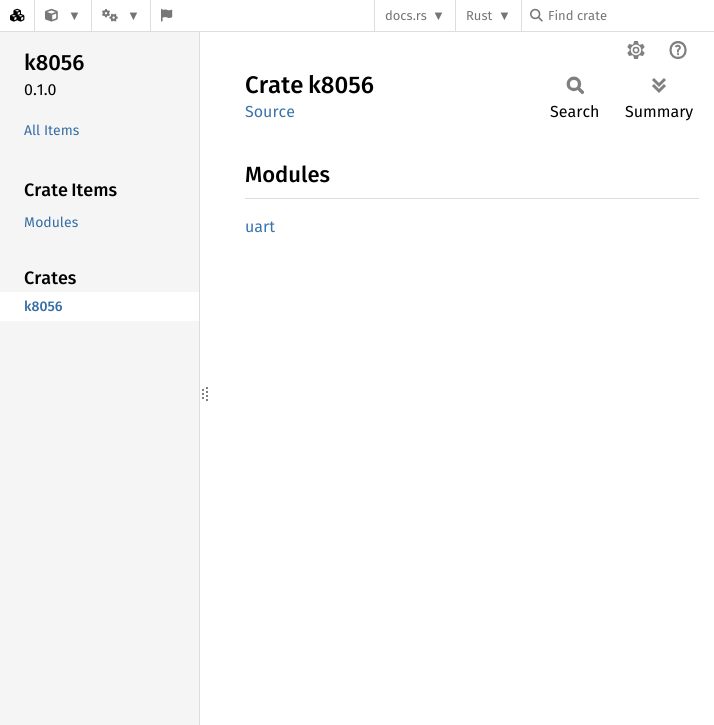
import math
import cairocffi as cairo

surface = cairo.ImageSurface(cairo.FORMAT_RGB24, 714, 725)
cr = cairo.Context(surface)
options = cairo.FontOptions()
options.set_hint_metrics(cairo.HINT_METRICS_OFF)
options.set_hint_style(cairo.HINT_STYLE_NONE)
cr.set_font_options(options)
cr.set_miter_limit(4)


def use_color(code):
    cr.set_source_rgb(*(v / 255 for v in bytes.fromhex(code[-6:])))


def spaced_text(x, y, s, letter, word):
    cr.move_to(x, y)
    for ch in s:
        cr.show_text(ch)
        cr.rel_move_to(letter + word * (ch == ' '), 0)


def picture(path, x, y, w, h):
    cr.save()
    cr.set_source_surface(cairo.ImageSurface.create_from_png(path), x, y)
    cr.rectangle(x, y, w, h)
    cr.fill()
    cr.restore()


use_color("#ffffff")
cr.paint()
use_color("#dddddd")
cr.rectangle(0, 31, 714, 1)
cr.fill()
picture("img1.png", 10, 8, 15, 14)
cr.rectangle(34, 0, 1, 31)
cr.fill()
picture("img2.png", 45, 8, 13, 14)
cr.select_font_face("Liberation Sans")
cr.set_font_size(13)
use_color("#757575")
cr.move_to(68, 20)
cr.show_text("▼")
use_color("#dddddd")
cr.rectangle(91, 0, 1, 31)
cr.fill()
picture("img3.png", 102, 9, 16, 13)
use_color("#757575")
cr.move_to(127, 20)
cr.show_text("▼")
use_color("#dddddd")
cr.rectangle(150, 0, 1, 31)
cr.fill()
picture("img4.png", 161, 8, 12, 14)
cr.rectangle(374, 0, 1, 31)
cr.fill()
cr.select_font_face("Fira Sans")
use_color("#757575")
cr.move_to(385, 20)
cr.show_text("docs.rs")
cr.select_font_face("Liberation Sans")
cr.move_to(432, 20)
cr.show_text("▼")
use_color("#dddddd")
cr.rectangle(455, 0, 1, 31)
cr.fill()
cr.select_font_face("Fira Sans")
use_color("#757575")
cr.move_to(466, 20)
cr.show_text("Rust")
cr.select_font_face("Liberation Sans")
cr.move_to(498, 20)
cr.show_text("▼")
use_color("#dddddd")
cr.rectangle(521, 0, 1, 31)
cr.fill()
picture("img5.png", 530, 8, 13, 14)
cr.select_font_face("Fira Sans")
use_color("#757575")
cr.move_to(548, 20)
cr.show_text("Find crate")
use_color("#f5f5f5")
cr.rectangle(0, 32, 199, 693)
cr.fill()
use_color("#dddddd")
cr.rectangle(199, 32, 1, 693)
cr.fill()
cr.select_font_face("Fira Sans Medium")
cr.set_font_size(22)
use_color("#000000")
cr.move_to(24, 70)
cr.show_text("k8056")
cr.select_font_face("Fira Sans")
cr.set_font_size(16)
cr.move_to(24, 95)
cr.show_text("0.1.0")
cr.set_font_size(14)
use_color("#356da4")
cr.move_to(24, 135)
cr.show_text("All Items")
cr.select_font_face("Fira Sans Medium")
cr.set_font_size(18)
use_color("#000000")
spaced_text(24, 196, "Crate Items", 0, -1)
cr.select_font_face("Fira Sans")
cr.set_font_size(14)
use_color("#356da4")
cr.move_to(24, 227)
cr.show_text("Modules")
cr.select_font_face("Fira Sans Medium")
cr.set_font_size(18)
use_color("#000000")
cr.move_to(24, 284)
cr.show_text("Crates")
use_color("#ffffff")
cr.rectangle(0, 292, 199, 29)
cr.fill()
cr.set_font_size(14)
use_color("#356da4")
cr.move_to(24, 311)
cr.show_text("k8056")
cr.set_font_size(24)
use_color("#000000")
cr.move_to(245, 93)
cr.show_text("Crate")
cr.move_to(308, 93)
cr.show_text("k8056")
cr.select_font_face("Fira Sans")
cr.set_font_size(16)
use_color("#3873ad")
cr.move_to(245, 117)
cr.show_text("Source")
picture("img6.png", 627, 41, 18, 18)
picture("img7.png", 669, 41, 18, 18)
picture("img8.png", 566, 76, 18, 18)
use_color("#000000")
cr.move_to(550, 117)
cr.show_text("Search")
picture("img9.png", 652, 78, 14, 15)
cr.move_to(625, 117)
cr.show_text("Summary")
use_color("#dddddd")
cr.rectangle(245, 198, 454, 1)
cr.fill()
cr.select_font_face("Fira Sans Medium")
cr.set_font_size(22)
use_color("#000000")
cr.move_to(245, 182)
cr.show_text("Modules")
cr.select_font_face("Fira Sans")
cr.set_font_size(16)
use_color("#3873ad")
cr.move_to(245, 232)
cr.show_text("uart")
cr.new_path()
cr.move_to(203, 389)
cr.line_to(203, 391)
cr.move_to(203, 393)
cr.line_to(203, 395)
cr.move_to(203, 397)
cr.line_to(203, 399)
use_color("#808080")
cr.stroke()
cr.new_path()
cr.move_to(207, 387)
cr.line_to(207, 403)
cr.set_dash([2, 2])
cr.stroke()
surface.write_to_png("result.png")
